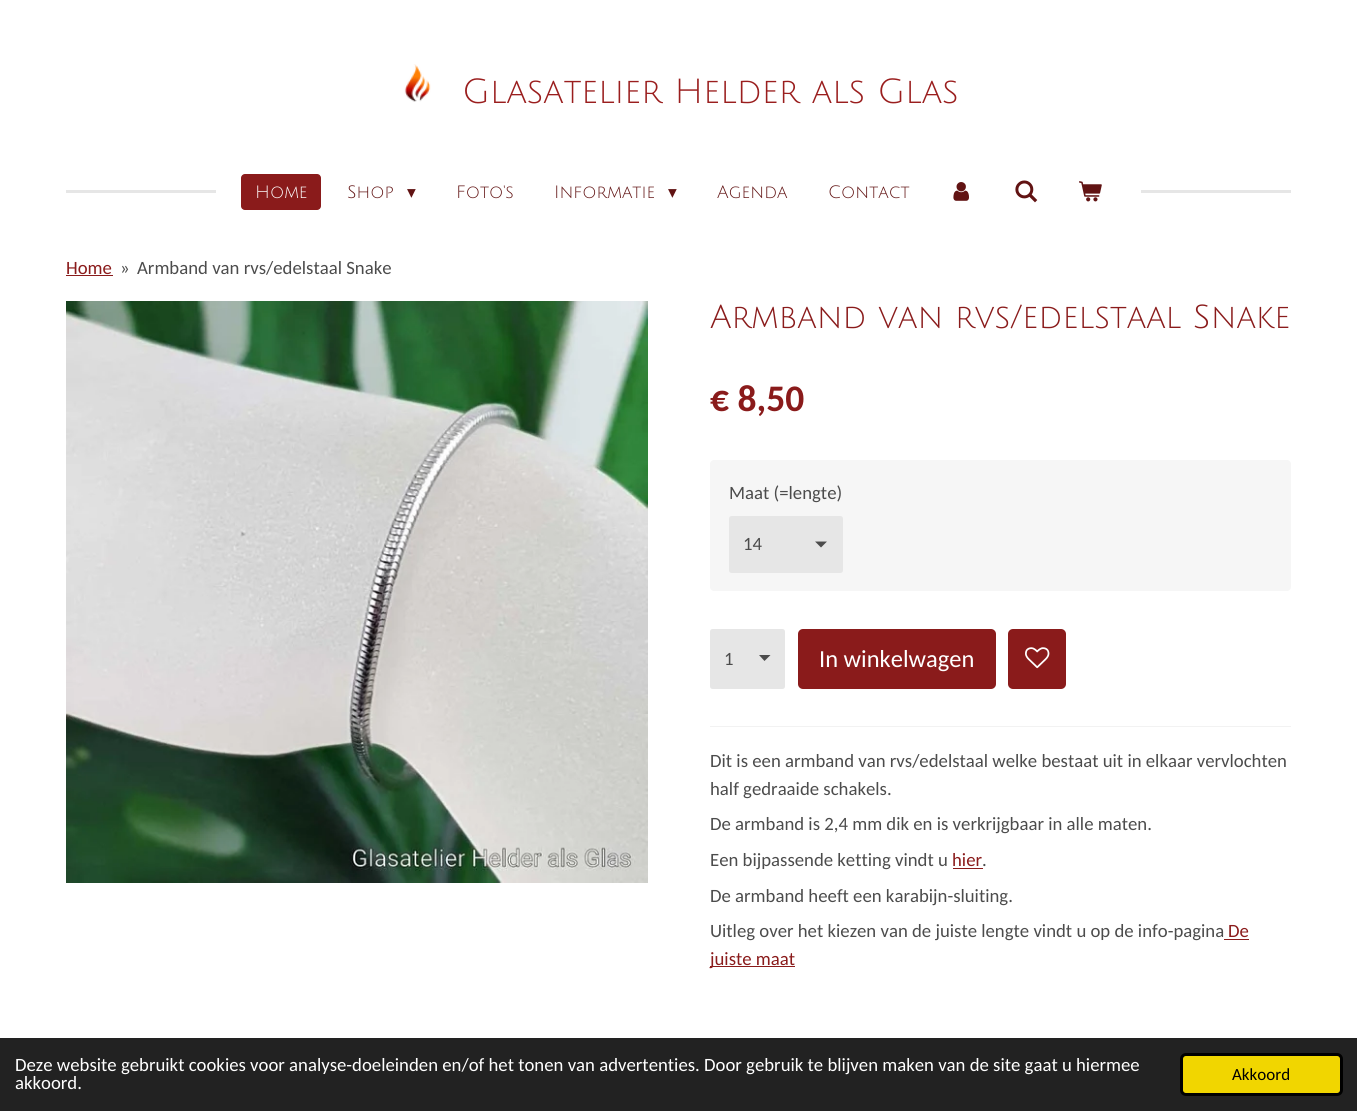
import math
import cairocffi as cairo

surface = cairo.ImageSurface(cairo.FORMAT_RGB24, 1357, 1111)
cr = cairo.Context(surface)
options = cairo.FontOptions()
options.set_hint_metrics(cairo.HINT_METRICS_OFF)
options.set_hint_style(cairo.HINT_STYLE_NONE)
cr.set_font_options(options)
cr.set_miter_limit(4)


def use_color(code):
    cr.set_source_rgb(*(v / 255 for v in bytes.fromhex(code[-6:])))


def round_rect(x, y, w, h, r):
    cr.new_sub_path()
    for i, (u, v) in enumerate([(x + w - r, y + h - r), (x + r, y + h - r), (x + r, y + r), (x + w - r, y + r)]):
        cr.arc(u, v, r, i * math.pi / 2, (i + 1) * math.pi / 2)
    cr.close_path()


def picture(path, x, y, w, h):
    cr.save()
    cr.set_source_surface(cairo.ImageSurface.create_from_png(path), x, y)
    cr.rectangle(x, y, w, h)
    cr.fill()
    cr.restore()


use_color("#ffffff")
cr.paint()
picture("img1.png", 404, 64, 27, 38)
cr.select_font_face("Julius Sans One")
cr.set_font_size(34.1)
use_color("#9a1e1e")
cr.move_to(462, 103)
cr.show_text("Glasatelier Helder als Glas")
use_color("#e6e6e6")
cr.rectangle(66, 190, 150, 3)
cr.fill()
use_color("#8a1b1b")
round_rect(241, 174, 80, 36, 4)
cr.fill()
cr.set_font_size(17.5)
use_color("#ffffff")
cr.move_to(255, 198)
cr.show_text("Home")
use_color("#611313")
cr.move_to(347, 198)
cr.show_text("Shop")
cr.select_font_face("DejaVu Sans")
cr.move_to(407, 198)
cr.show_text("▾")
cr.select_font_face("Julius Sans One")
cr.move_to(456, 198)
cr.show_text("Foto's")
cr.move_to(554, 198)
cr.show_text("Informatie")
cr.select_font_face("DejaVu Sans")
cr.move_to(668, 198)
cr.show_text("▾")
cr.select_font_face("Julius Sans One")
cr.move_to(717, 198)
cr.show_text("Agenda")
cr.move_to(828, 198)
cr.show_text("Contact")
picture("img2.png", 953, 182, 16, 19)
picture("img3.png", 1015, 180, 23, 23)
picture("img4.png", 1079, 181, 23, 21)
use_color("#e6e6e6")
cr.rectangle(1141, 190, 150, 3)
cr.fill()
cr.select_font_face("Carlito")
cr.set_font_size(18.75)
use_color("#8a1b1b")
cr.move_to(66, 274)
cr.show_text("Home")
cr.rectangle(66, 275, 47, 1)
cr.fill()
use_color("#4c4c4c")
cr.move_to(120, 274)
cr.show_text("»")
cr.move_to(137, 274)
cr.show_text("Armband van rvs/edelstaal Snake")
picture("img5.png", 66, 301, 582, 582)
cr.select_font_face("Julius Sans One")
cr.set_font_size(32.5)
use_color("#8a1b1b")
cr.move_to(710, 328)
cr.show_text("Armband van rvs/edelstaal Snake")
cr.select_font_face("Carlito", cairo.FONT_SLANT_NORMAL, cairo.FONT_WEIGHT_BOLD)
cr.set_font_size(37.5)
cr.move_to(710, 411)
cr.show_text("€ 8,50")
use_color("#f6f6f6")
round_rect(710, 460, 581, 131, 4)
cr.fill()
cr.select_font_face("Carlito")
cr.set_font_size(18.75)
use_color("#4c4c4c")
cr.move_to(729, 499)
cr.show_text("Maat (=lengte)")
use_color("#e6e6e6")
round_rect(729, 516, 114, 57, 2.5)
cr.fill()
use_color("#4c4c4c")
cr.new_path()
cr.move_to(821, 547.5)
cr.line_to(815, 541.5)
cr.line_to(827, 541.5)
cr.close_path()
cr.fill()
cr.move_to(743, 550)
cr.show_text("14")
use_color("#e6e6e6")
round_rect(710, 629, 75, 60, 2.5)
cr.fill()
use_color("#4c4c4c")
cr.new_path()
cr.move_to(764.5, 661)
cr.line_to(759, 655)
cr.line_to(770.5, 655)
cr.close_path()
cr.fill()
cr.move_to(724, 665)
cr.show_text("1")
use_color("#8a1b1b")
round_rect(798, 629, 198, 60, 5)
cr.fill()
cr.set_font_size(24.5)
use_color("#ffffff")
cr.move_to(819, 667)
cr.show_text("In winkelwagen")
use_color("#8a1b1b")
round_rect(1008, 629, 58, 60, 5)
cr.fill()
picture("img6.png", 1025, 647, 25, 22)
use_color("#f2f2f2")
cr.rectangle(710, 726, 581, 1)
cr.fill()
cr.set_font_size(18.75)
use_color("#4c4c4c")
cr.move_to(710, 767)
cr.show_text("Dit is een armband van rvs/edelstaal welke bestaat uit in elkaar vervlochten")
cr.move_to(710, 795)
cr.show_text("half gedraaide schakels.")
cr.move_to(710, 830)
cr.show_text("De armband is 2,4 mm dik en is verkrijgbaar in alle maten.")
cr.move_to(710, 866)
cr.show_text("Een bijpassende ketting vindt u")
use_color("#8a1b1b")
cr.move_to(952, 866)
cr.show_text("hier")
cr.rectangle(953, 868, 30, 1)
cr.fill()
use_color("#4c4c4c")
cr.move_to(982, 866)
cr.show_text(".")
cr.move_to(710, 902)
cr.show_text("De armband heeft een karabijn-sluiting.")
cr.move_to(710, 937)
cr.show_text("Uitleg over het kiezen van de juiste lengte vindt u op de info-pagina")
use_color("#8a1b1b")
cr.move_to(1228, 937)
cr.show_text("De")
cr.rectangle(1224, 939, 25, 1)
cr.fill()
cr.rectangle(710, 966, 85, 1)
cr.fill()
cr.move_to(710, 965)
cr.show_text("juiste maat")
use_color("#222222")
cr.rectangle(0, 1038, 1357, 73)
cr.fill()
use_color("#ffffff")
cr.move_to(15, 1071)
cr.show_text("Deze website gebruikt cookies voor analyse-doeleinden en/of het tonen van advertenties. Door gebruik te blijven maken van de site gaat u hiermee")
cr.move_to(15, 1089)
cr.show_text("akkoord.")
use_color("#f1d600")
round_rect(1181.5, 1054.5, 160, 40, 4.5)
cr.fill_preserve()
use_color("#000000")
cr.set_line_width(3)
cr.stroke()
cr.set_font_size(17)
cr.move_to(1232, 1080)
cr.show_text("Akkoord")
surface.write_to_png("result.png")
